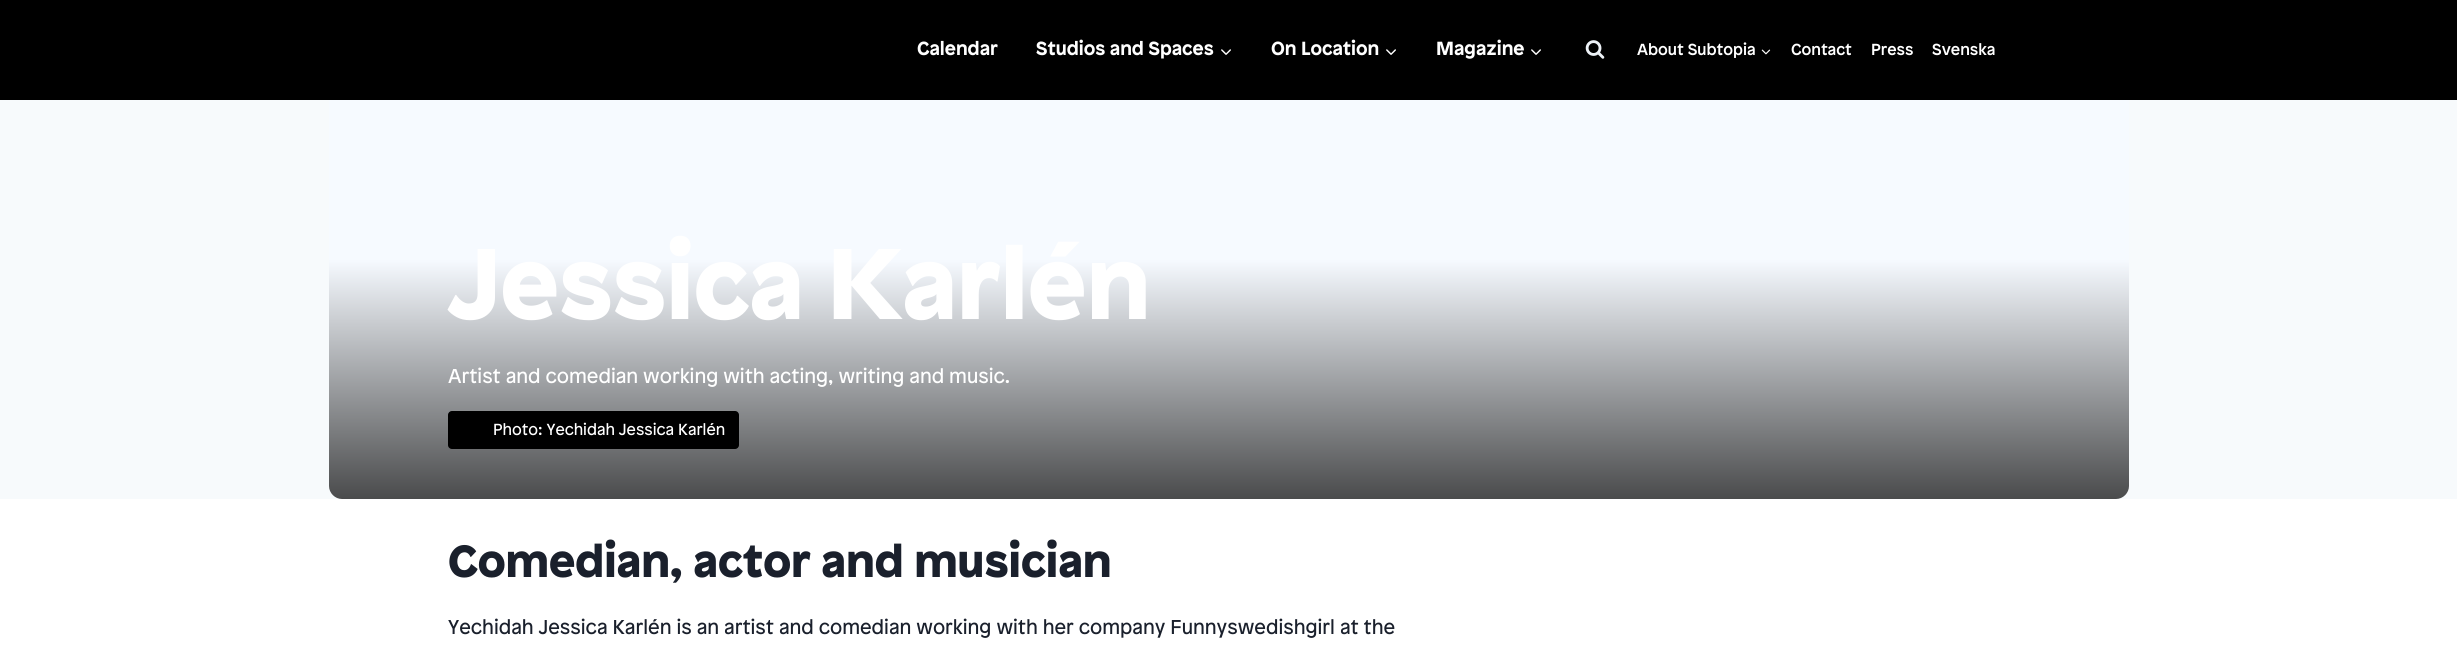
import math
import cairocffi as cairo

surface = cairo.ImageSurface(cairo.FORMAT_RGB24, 2457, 646)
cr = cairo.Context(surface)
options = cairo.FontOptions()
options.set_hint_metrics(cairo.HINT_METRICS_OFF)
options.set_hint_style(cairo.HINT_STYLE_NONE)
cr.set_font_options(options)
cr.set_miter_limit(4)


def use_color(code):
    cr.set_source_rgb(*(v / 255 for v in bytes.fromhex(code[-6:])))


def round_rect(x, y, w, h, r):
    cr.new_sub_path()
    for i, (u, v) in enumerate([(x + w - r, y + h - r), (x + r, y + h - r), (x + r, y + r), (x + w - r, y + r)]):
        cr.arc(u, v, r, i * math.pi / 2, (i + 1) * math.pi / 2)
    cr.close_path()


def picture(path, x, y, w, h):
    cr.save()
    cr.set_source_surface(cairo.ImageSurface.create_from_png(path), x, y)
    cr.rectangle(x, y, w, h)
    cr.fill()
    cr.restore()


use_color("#f7fafc")
cr.paint()
use_color("#000000")
cr.rectangle(0, 0, 2457, 100)
cr.fill()
cr.select_font_face("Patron", cairo.FONT_SLANT_NORMAL, cairo.FONT_WEIGHT_BOLD)
cr.set_font_size(19)
use_color("#ffffff")
cr.move_to(917, 55)
cr.show_text("Calendar")
cr.move_to(1036, 55)
cr.show_text("Studios and Spaces")
picture("img1.png", 1221, 49, 10, 6)
cr.move_to(1271, 55)
cr.show_text("On Location")
picture("img1.png", 1386, 49, 10, 6)
cr.move_to(1436, 55)
cr.show_text("Magazine")
picture("img1.png", 1531, 49, 10, 6)
picture("img2.png", 1585, 40, 20, 19)
cr.select_font_face("Patron Medium")
cr.set_font_size(16)
cr.move_to(1637, 55)
cr.show_text("About Subtopia")
picture("img3.png", 1761, 49, 10, 6)
cr.move_to(1791, 55)
cr.show_text("Contact")
cr.move_to(1871, 55)
cr.show_text("Press")
cr.move_to(1932, 55)
cr.show_text("Svenska")
gradient = cairo.LinearGradient(1229, 100, 1229, 499)
gradient.add_color_stop_rgba(0.4, 0.965, 0.98, 1, 1)
gradient.add_color_stop_rgba(1, 0.29, 0.294, 0.298, 1)
cr.set_source(gradient)
cr.new_path()
cr.move_to(329, 100)
cr.line_to(2129, 100)
cr.line_to(2129, 486)
cr.curve_to(2129, 493, 2123, 499, 2116, 499)
cr.line_to(342, 499)
cr.curve_to(335, 499, 329, 493, 329, 486)
cr.close_path()
cr.fill()
cr.select_font_face("Patron Black")
cr.set_font_size(100)
use_color("#ffffff")
cr.move_to(448, 319)
cr.show_text("Jessica Karlén")
cr.select_font_face("Patron")
cr.set_font_size(20)
cr.move_to(448, 383)
cr.show_text("Artist and comedian working with acting, writing and music.")
use_color("#000000")
round_rect(448, 411, 291, 38, 4)
cr.fill()
cr.set_font_size(16)
use_color("#ffffff")
cr.move_to(493, 435)
cr.show_text("Photo: Yechidah Jessica Karlén")
cr.rectangle(0, 499, 2457, 147)
cr.fill()
cr.select_font_face("Patron Black")
cr.set_font_size(45)
use_color("#1a202c")
cr.move_to(448, 577)
cr.show_text("Comedian, actor and musician")
cr.select_font_face("Patron")
cr.set_font_size(20)
cr.move_to(448, 634)
cr.show_text("Yechidah Jessica Karlén is an artist and comedian working with her company Funnyswedishgirl at the")
surface.write_to_png("result.png")
